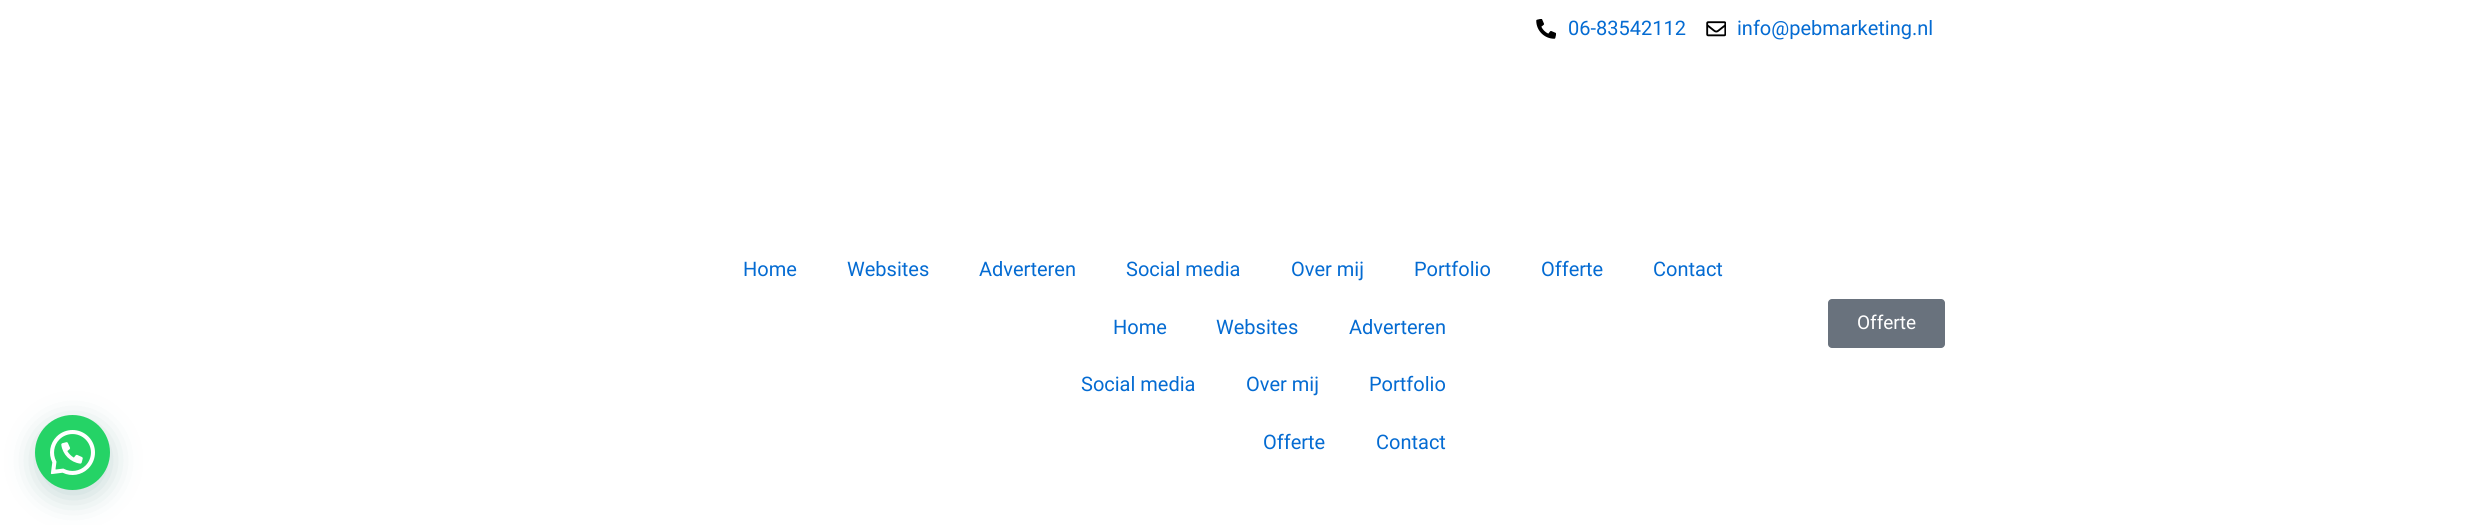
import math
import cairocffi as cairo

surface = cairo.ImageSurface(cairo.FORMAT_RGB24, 2466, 525)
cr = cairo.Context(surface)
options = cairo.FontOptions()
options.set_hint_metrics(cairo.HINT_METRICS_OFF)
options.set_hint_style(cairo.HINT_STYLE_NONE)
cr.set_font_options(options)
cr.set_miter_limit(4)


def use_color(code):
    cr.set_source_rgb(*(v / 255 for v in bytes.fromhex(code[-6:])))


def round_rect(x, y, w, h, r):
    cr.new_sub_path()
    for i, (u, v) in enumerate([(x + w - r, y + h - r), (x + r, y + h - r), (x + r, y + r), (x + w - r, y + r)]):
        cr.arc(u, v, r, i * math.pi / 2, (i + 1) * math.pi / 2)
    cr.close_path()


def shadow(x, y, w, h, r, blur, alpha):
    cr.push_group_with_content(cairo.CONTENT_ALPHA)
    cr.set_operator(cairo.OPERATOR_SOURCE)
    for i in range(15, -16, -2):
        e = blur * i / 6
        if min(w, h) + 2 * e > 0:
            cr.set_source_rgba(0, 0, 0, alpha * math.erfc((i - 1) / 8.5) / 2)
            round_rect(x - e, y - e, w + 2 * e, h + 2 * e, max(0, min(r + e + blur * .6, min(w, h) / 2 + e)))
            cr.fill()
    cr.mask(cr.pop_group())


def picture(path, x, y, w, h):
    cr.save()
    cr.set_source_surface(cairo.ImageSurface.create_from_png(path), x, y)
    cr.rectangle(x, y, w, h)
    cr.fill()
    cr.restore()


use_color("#ffffff")
cr.paint()
use_color("#075e54")
shadow(36, 423, 75, 75, 37.5, 15, 0.24)
use_color("#25d366")
cr.arc(72.5, 452.5, 37.5, 0, 2 * math.pi)
cr.fill()
picture("img1.png", 50, 430, 45, 45)
picture("img2.png", 1536, 19, 20, 20)
cr.select_font_face("Roboto")
cr.set_font_size(20)
use_color("#046bd2")
cr.move_to(1568, 35)
cr.show_text("06-83542112")
picture("img3.png", 1706, 21, 20, 16)
cr.move_to(1737, 35)
cr.show_text("info@pebmarketing.nl")
cr.move_to(743, 276)
cr.show_text("Home")
cr.move_to(847, 276)
cr.show_text("Websites")
cr.move_to(979, 276)
cr.show_text("Adverteren")
cr.move_to(1126, 276)
cr.show_text("Social media")
cr.move_to(1291, 276)
cr.show_text("Over mij")
cr.move_to(1414, 276)
cr.show_text("Portfolio")
cr.move_to(1541, 276)
cr.show_text("Offerte")
cr.move_to(1653, 276)
cr.show_text("Contact")
cr.move_to(1113, 334)
cr.show_text("Home")
cr.move_to(1216, 334)
cr.show_text("Websites")
cr.move_to(1349, 334)
cr.show_text("Adverteren")
cr.move_to(1081, 391)
cr.show_text("Social media")
cr.move_to(1246, 391)
cr.show_text("Over mij")
cr.move_to(1369, 391)
cr.show_text("Portfolio")
cr.move_to(1263, 449)
cr.show_text("Offerte")
cr.move_to(1376, 449)
cr.show_text("Contact")
use_color("#69727d")
round_rect(1828, 299, 117, 49, 4)
cr.fill()
cr.set_font_size(19)
use_color("#ffffff")
cr.move_to(1857, 329)
cr.show_text("Offerte")
surface.write_to_png("result.png")
